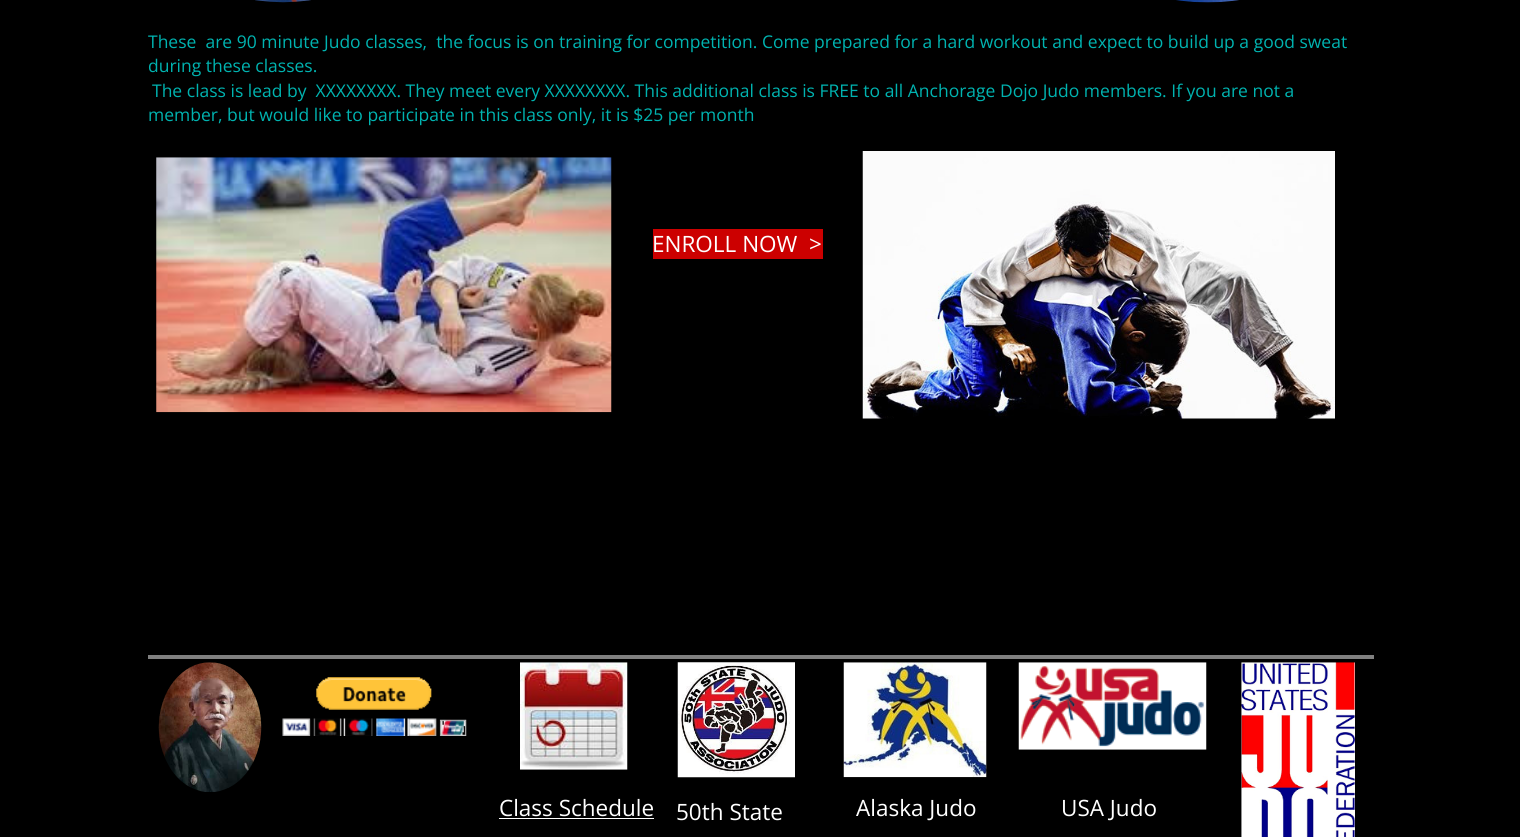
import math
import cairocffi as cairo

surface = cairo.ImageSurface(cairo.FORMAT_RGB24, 1520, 837)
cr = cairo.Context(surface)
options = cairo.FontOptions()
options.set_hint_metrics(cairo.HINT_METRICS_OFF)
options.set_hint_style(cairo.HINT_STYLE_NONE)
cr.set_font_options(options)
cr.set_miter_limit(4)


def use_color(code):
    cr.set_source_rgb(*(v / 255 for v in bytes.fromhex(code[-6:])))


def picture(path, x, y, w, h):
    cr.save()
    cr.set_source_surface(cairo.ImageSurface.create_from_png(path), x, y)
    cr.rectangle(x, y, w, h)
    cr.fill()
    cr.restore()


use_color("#000000")
cr.paint()
picture("img1.png", 255, 0, 56, 3)
picture("img2.png", 1176, 0, 63, 3)
cr.select_font_face("Open Sans")
cr.set_font_size(17.5)
use_color("#00b3b0")
cr.move_to(148, 48)
cr.show_text("These  are 90 minute Judo classes,  the focus is on training for competition. Come prepared for a hard workout and expect to build up a good sweat")
cr.move_to(148, 72)
cr.show_text("during these classes.")
cr.move_to(152, 97)
cr.show_text("The class is lead by  XXXXXXXX. They meet every XXXXXXXX. This additional class is FREE to all Anchorage Dojo Judo members. If you are not a")
cr.move_to(148, 121)
cr.show_text("member, but would like to participate in this class only, it is $25 per month")
use_color("#cc0000")
cr.rectangle(653, 229, 170, 30)
cr.fill()
cr.set_font_size(22.5)
use_color("#ffffff")
cr.move_to(652, 252)
cr.show_text("ENROLL NOW  >")
picture("img3.png", 156, 157, 456, 256)
picture("img4.png", 862, 151, 473, 268)
use_color("#808080")
cr.rectangle(148, 655, 1226, 4)
cr.fill()
picture("img5.png", 158, 662, 104, 130)
picture("img6.png", 282, 677, 185, 59)
picture("img7.png", 520, 662, 108, 108)
picture("img8.png", 677, 662, 118, 116)
picture("img9.png", 843, 662, 144, 116)
picture("img10.png", 1018, 662, 189, 88)
picture("img11.png", 1241, 662, 114, 175)
use_color("#ffffff")
cr.move_to(499, 816)
cr.show_text("Class Schedule")
cr.rectangle(499, 818, 155, 1)
cr.fill()
cr.move_to(676, 820)
cr.show_text("50th State")
cr.move_to(856, 816)
cr.show_text("Alaska Judo")
cr.move_to(1061, 816)
cr.show_text("USA Judo")
surface.write_to_png("result.png")
